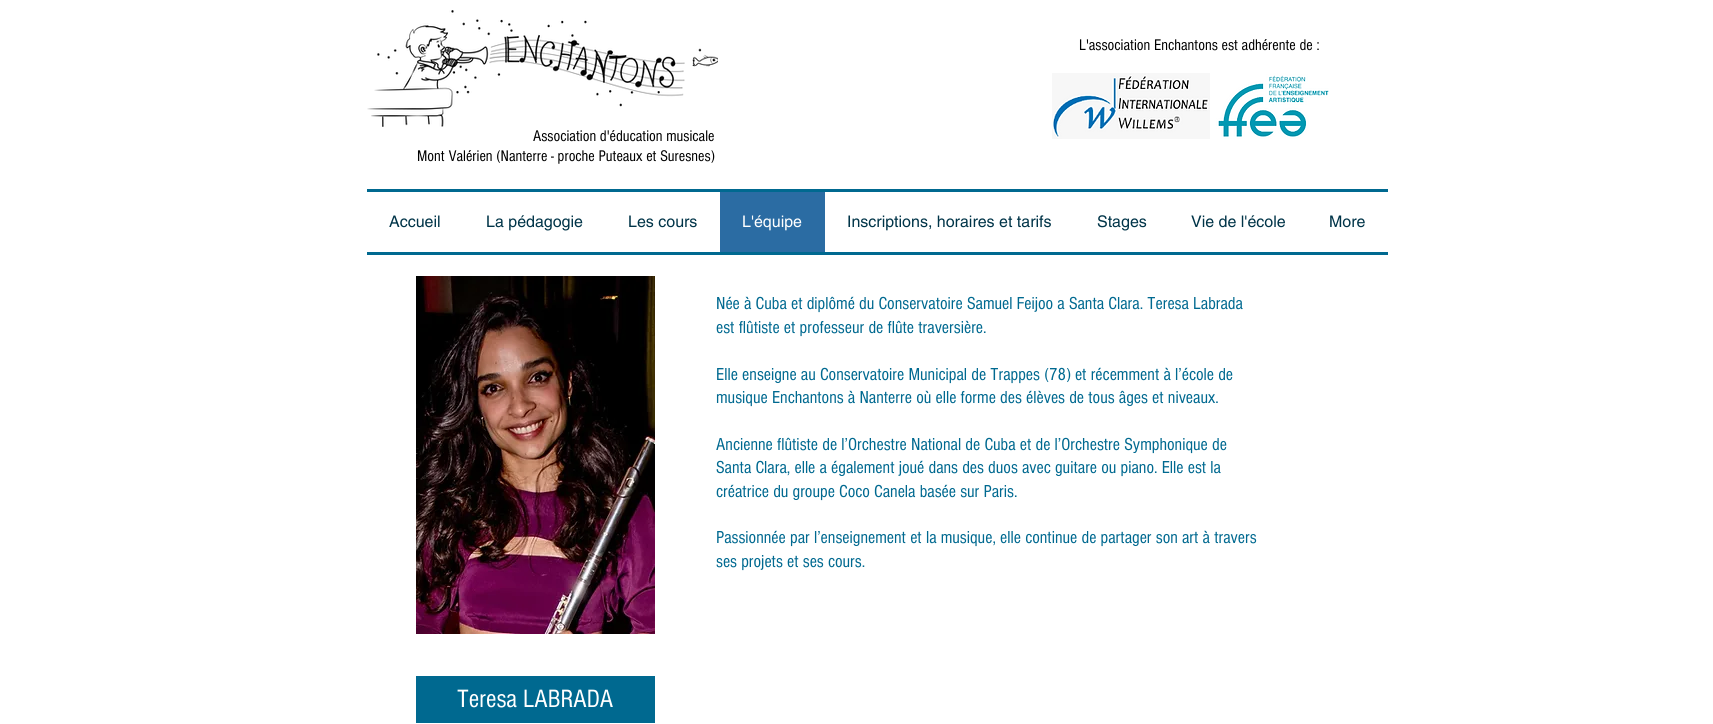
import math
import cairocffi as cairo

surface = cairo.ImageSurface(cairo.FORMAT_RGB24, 1713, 724)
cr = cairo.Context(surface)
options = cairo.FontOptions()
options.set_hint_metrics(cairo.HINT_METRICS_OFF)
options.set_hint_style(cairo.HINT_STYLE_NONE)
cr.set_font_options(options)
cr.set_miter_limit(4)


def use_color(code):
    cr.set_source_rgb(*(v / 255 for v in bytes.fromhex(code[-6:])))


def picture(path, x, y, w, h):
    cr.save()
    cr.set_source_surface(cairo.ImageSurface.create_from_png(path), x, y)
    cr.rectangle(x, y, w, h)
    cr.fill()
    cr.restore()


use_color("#ffffff")
cr.paint()
cr.select_font_face("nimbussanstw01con")
cr.set_font_size(16)
use_color("#000000")
cr.move_to(1079, 50)
cr.show_text("L'association Enchantons est adhérente de :")
picture("img1.png", 1052, 73, 158, 66)
picture("img2.png", 1210, 73, 119, 66)
picture("img3.png", 367, 10, 351, 117)
cr.move_to(533, 141)
cr.show_text("Association d'éducation musicale")
cr.move_to(417, 161)
cr.show_text("Mont Valérien (Nanterre - proche Puteaux et Suresnes)")
use_color("#006990")
cr.rectangle(367, 189, 1021, 3)
cr.fill()
cr.rectangle(367, 252, 1021, 3)
cr.fill()
cr.select_font_face("helvetica")
use_color("#003448")
cr.move_to(389, 227)
cr.show_text("Accueil")
cr.move_to(486, 227)
cr.show_text("La pédagogie")
cr.move_to(628, 227)
cr.show_text("Les cours")
use_color("#2b6ca3")
cr.rectangle(720, 192, 105, 60)
cr.fill()
use_color("#ffffff")
cr.move_to(742, 227)
cr.show_text("L'équipe")
use_color("#003448")
cr.move_to(847, 227)
cr.show_text("Inscriptions, horaires et tarifs")
cr.move_to(1097, 227)
cr.show_text("Stages")
cr.move_to(1191, 227)
cr.show_text("Vie de l'école")
cr.move_to(1329, 227)
cr.show_text("More")
picture("img4.png", 416, 276, 239, 358)
cr.select_font_face("nimbussanstw01con")
cr.set_font_size(18)
use_color("#006990")
cr.move_to(716, 309)
cr.show_text("Née à Cuba et diplômé du Conservatoire Samuel Feijoo a Santa Clara. Teresa Labrada")
cr.move_to(716, 333)
cr.show_text("est flûtiste et professeur de flûte traversière.")
cr.move_to(716, 380)
cr.show_text("Elle enseigne au Conservatoire Municipal de Trappes (78) et récemment à l’école de")
cr.move_to(716, 403)
cr.show_text("musique Enchantons à Nanterre où elle forme des élèves de tous âges et niveaux.")
cr.move_to(716, 450)
cr.show_text("Ancienne flûtiste de l’Orchestre National de Cuba et de l’Orchestre Symphonique de")
cr.move_to(716, 473)
cr.show_text("Santa Clara, elle a également joué dans des duos avec guitare ou piano. Elle est la")
cr.move_to(716, 497)
cr.show_text("créatrice du groupe Coco Canela basée sur Paris.")
cr.move_to(716, 543)
cr.show_text("Passionnée par l’enseignement et la musique, elle continue de partager son art à travers")
cr.move_to(716, 567)
cr.show_text("ses projets et ses cours.")
cr.rectangle(416, 676, 239, 47)
cr.fill()
cr.set_font_size(26)
use_color("#ffffff")
cr.move_to(457, 707)
cr.show_text("Teresa LABRADA")
surface.write_to_png("result.png")
